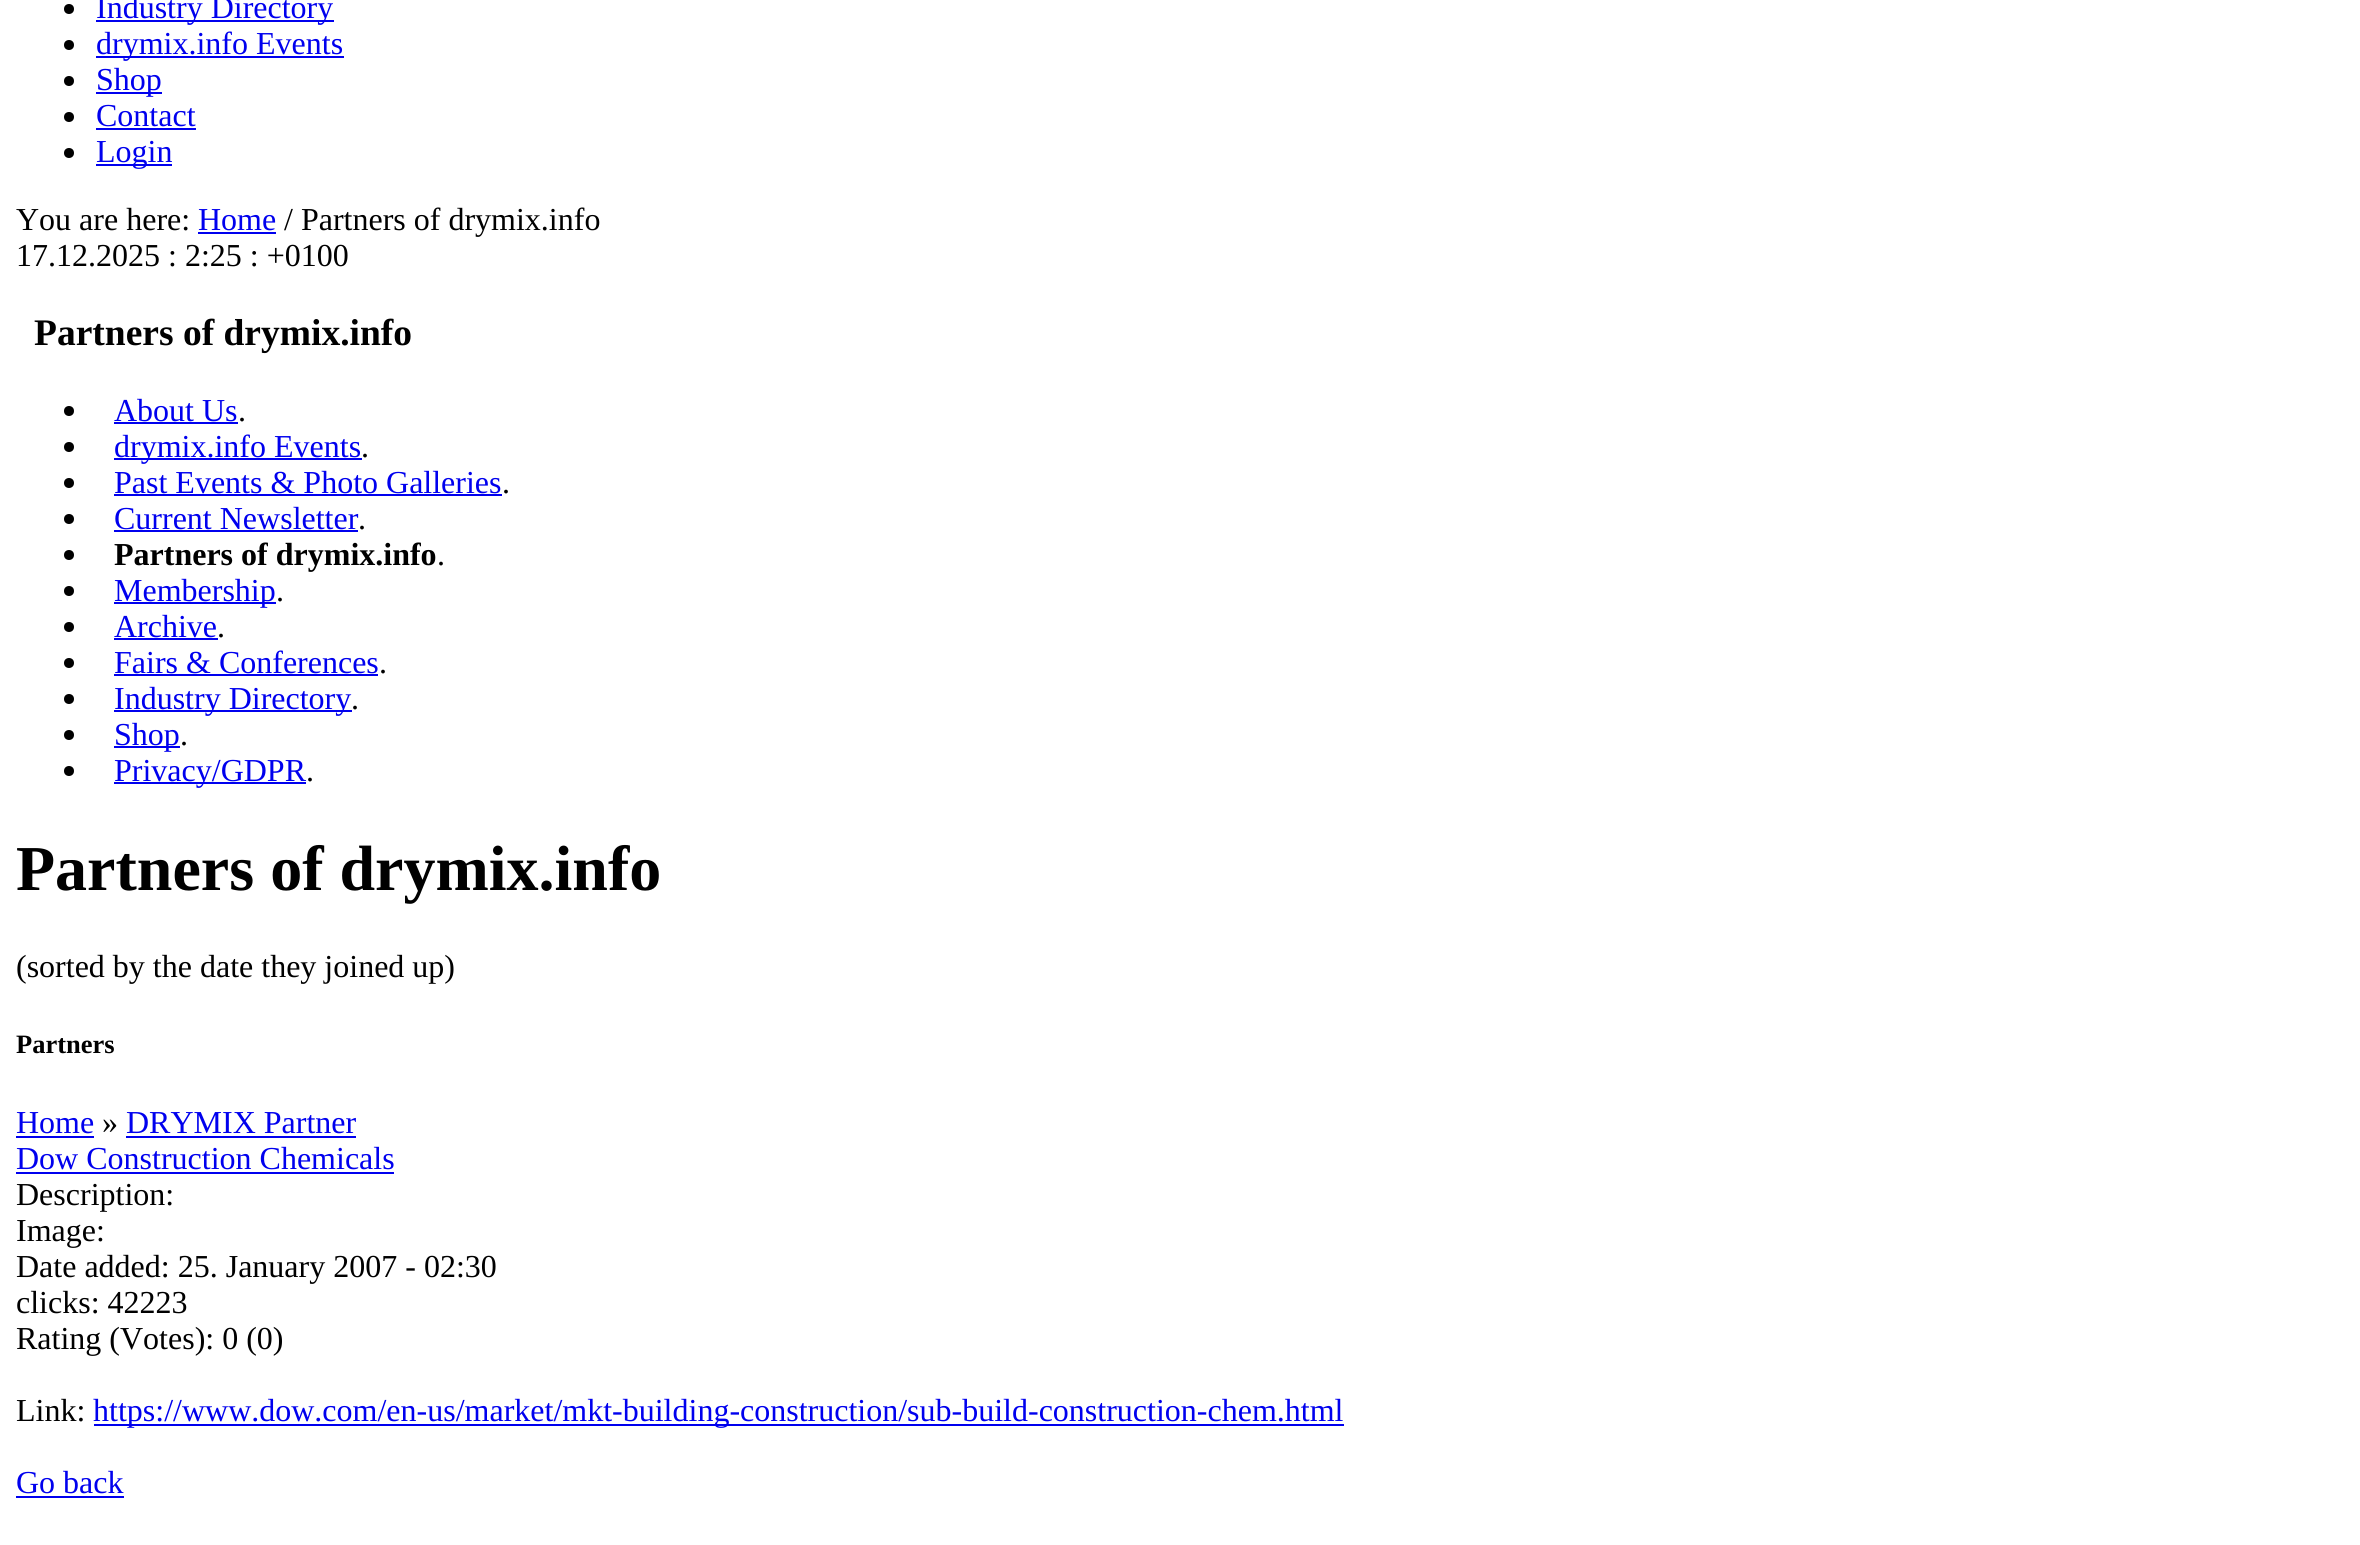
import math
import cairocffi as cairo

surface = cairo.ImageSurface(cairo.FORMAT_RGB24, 2360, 1545)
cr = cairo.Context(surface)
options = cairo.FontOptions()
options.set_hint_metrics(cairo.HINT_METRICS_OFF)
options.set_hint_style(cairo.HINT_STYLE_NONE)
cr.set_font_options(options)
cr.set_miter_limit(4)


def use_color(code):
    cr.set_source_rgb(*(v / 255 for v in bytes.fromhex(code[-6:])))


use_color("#ffffff")
cr.paint()
use_color("#000000")
cr.arc(69, 9, 5, 0, 2 * math.pi)
cr.fill()
use_color("#0000ee")
cr.rectangle(96, 20, 238, 2)
cr.fill()
cr.select_font_face("Liberation Serif")
cr.set_font_size(32)
cr.move_to(96, 18)
cr.show_text("Industry Directory")
use_color("#000000")
cr.new_path()
cr.arc(69, 45, 5, 0, 2 * math.pi)
cr.fill()
use_color("#0000ee")
cr.rectangle(96, 56, 248, 2)
cr.fill()
cr.move_to(96, 54)
cr.show_text("drymix.info Events")
use_color("#000000")
cr.new_path()
cr.arc(69, 81, 5, 0, 2 * math.pi)
cr.fill()
use_color("#0000ee")
cr.rectangle(96, 92, 66, 2)
cr.fill()
cr.move_to(96, 90)
cr.show_text("Shop")
use_color("#000000")
cr.new_path()
cr.arc(69, 117, 5, 0, 2 * math.pi)
cr.fill()
use_color("#0000ee")
cr.move_to(96, 126)
cr.show_text("Contact")
cr.rectangle(96, 128, 100, 2)
cr.fill()
use_color("#000000")
cr.arc(69, 153, 5, 0, 2 * math.pi)
cr.fill()
use_color("#0000ee")
cr.rectangle(96, 164, 76, 2)
cr.fill()
cr.move_to(96, 162)
cr.show_text("Login")
use_color("#000000")
cr.move_to(16, 230)
cr.show_text("You are here:")
use_color("#0000ee")
cr.move_to(198, 230)
cr.show_text("Home")
cr.rectangle(198, 232, 78, 2)
cr.fill()
use_color("#000000")
cr.move_to(284, 230)
cr.show_text("/ Partners of drymix.info")
cr.move_to(16, 266)
cr.show_text("17.12.2025 : 2:25 : +0100")
cr.select_font_face("Liberation Serif", cairo.FONT_SLANT_NORMAL, cairo.FONT_WEIGHT_BOLD)
cr.set_font_size(37.5)
cr.move_to(34, 345)
cr.show_text("Partners of drymix.info")
cr.new_path()
cr.arc(69, 411, 5, 0, 2 * math.pi)
cr.fill()
cr.select_font_face("Liberation Serif")
cr.set_font_size(32)
use_color("#0000ee")
cr.move_to(114, 421)
cr.show_text("About Us")
cr.rectangle(114, 422, 124, 2)
cr.fill()
use_color("#000000")
cr.move_to(238, 421)
cr.show_text(".")
cr.new_path()
cr.arc(69, 447, 5, 0, 2 * math.pi)
cr.fill()
use_color("#0000ee")
cr.rectangle(114, 458, 248, 2)
cr.fill()
cr.move_to(114, 457)
cr.show_text("drymix.info Events")
use_color("#000000")
cr.move_to(361, 457)
cr.show_text(".")
cr.new_path()
cr.arc(69, 483, 5, 0, 2 * math.pi)
cr.fill()
use_color("#0000ee")
cr.move_to(114, 493)
cr.show_text("Past Events & Photo Galleries")
cr.rectangle(114, 494, 388, 2)
cr.fill()
use_color("#000000")
cr.move_to(502, 493)
cr.show_text(".")
cr.new_path()
cr.arc(69, 519, 5, 0, 2 * math.pi)
cr.fill()
use_color("#0000ee")
cr.move_to(114, 529)
cr.show_text("Current Newsletter")
cr.rectangle(114, 530, 244, 2)
cr.fill()
use_color("#000000")
cr.move_to(358, 529)
cr.show_text(".")
cr.new_path()
cr.arc(69, 555, 5, 0, 2 * math.pi)
cr.fill()
cr.select_font_face("Liberation Serif", cairo.FONT_SLANT_NORMAL, cairo.FONT_WEIGHT_BOLD)
cr.move_to(114, 565)
cr.show_text("Partners of drymix.info")
cr.select_font_face("Liberation Serif")
cr.move_to(437, 565)
cr.show_text(".")
cr.new_path()
cr.arc(69, 591, 5, 0, 2 * math.pi)
cr.fill()
use_color("#0000ee")
cr.rectangle(114, 602, 162, 2)
cr.fill()
cr.move_to(114, 601)
cr.show_text("Membership")
use_color("#000000")
cr.move_to(276, 601)
cr.show_text(".")
cr.new_path()
cr.arc(69, 627, 5, 0, 2 * math.pi)
cr.fill()
use_color("#0000ee")
cr.move_to(114, 637)
cr.show_text("Archive")
cr.rectangle(114, 638, 104, 2)
cr.fill()
use_color("#000000")
cr.move_to(217, 637)
cr.show_text(".")
cr.new_path()
cr.arc(69, 663, 5, 0, 2 * math.pi)
cr.fill()
use_color("#0000ee")
cr.move_to(114, 673)
cr.show_text("Fairs & Conferences")
cr.rectangle(114, 674, 264, 2)
cr.fill()
use_color("#000000")
cr.move_to(379, 673)
cr.show_text(".")
cr.new_path()
cr.arc(69, 699, 5, 0, 2 * math.pi)
cr.fill()
use_color("#0000ee")
cr.rectangle(114, 710, 238, 2)
cr.fill()
cr.move_to(114, 709)
cr.show_text("Industry Directory")
use_color("#000000")
cr.move_to(351, 709)
cr.show_text(".")
cr.new_path()
cr.arc(69, 735, 5, 0, 2 * math.pi)
cr.fill()
use_color("#0000ee")
cr.rectangle(114, 746, 66, 2)
cr.fill()
cr.move_to(114, 745)
cr.show_text("Shop")
use_color("#000000")
cr.move_to(180, 745)
cr.show_text(".")
cr.new_path()
cr.arc(69, 771, 5, 0, 2 * math.pi)
cr.fill()
use_color("#0000ee")
cr.rectangle(114, 782, 192, 2)
cr.fill()
cr.move_to(114, 781)
cr.show_text("Privacy/GDPR")
use_color("#000000")
cr.move_to(306, 781)
cr.show_text(".")
cr.select_font_face("Liberation Serif", cairo.FONT_SLANT_NORMAL, cairo.FONT_WEIGHT_BOLD)
cr.set_font_size(64)
cr.move_to(16, 890)
cr.show_text("Partners of drymix.info")
cr.select_font_face("Liberation Serif")
cr.set_font_size(32)
cr.move_to(16, 977)
cr.show_text("(sorted by the date they joined up)")
cr.select_font_face("Liberation Serif", cairo.FONT_SLANT_NORMAL, cairo.FONT_WEIGHT_BOLD)
cr.set_font_size(26.5)
cr.move_to(16, 1053)
cr.show_text("Partners")
cr.select_font_face("Liberation Serif")
cr.set_font_size(32)
use_color("#0000ee")
cr.move_to(16, 1133)
cr.show_text("Home")
cr.rectangle(16, 1136, 78, 2)
cr.fill()
use_color("#000000")
cr.move_to(102, 1133)
cr.show_text("»")
use_color("#0000ee")
cr.move_to(126, 1133)
cr.show_text("DRYMIX Partner")
cr.rectangle(126, 1136, 230, 2)
cr.fill()
cr.move_to(16, 1169)
cr.show_text("Dow Construction Chemicals")
cr.rectangle(16, 1172, 378, 2)
cr.fill()
use_color("#000000")
cr.move_to(16, 1205)
cr.show_text("Description:")
cr.move_to(16, 1241)
cr.show_text("Image:")
cr.move_to(16, 1277)
cr.show_text("Date added: 25. January 2007 - 02:30")
cr.move_to(16, 1313)
cr.show_text("clicks: 42223")
cr.move_to(16, 1349)
cr.show_text("Rating (Votes): 0 (0)")
cr.move_to(16, 1421)
cr.show_text("Link:")
use_color("#0000ee")
cr.rectangle(94, 1424, 1250, 2)
cr.fill()
cr.move_to(93, 1421)
cr.show_text("https://www.dow.com/en-us/market/mkt-building-construction/sub-build-construction-chem.html")
cr.move_to(16, 1493)
cr.show_text("Go back")
cr.rectangle(16, 1496, 108, 2)
cr.fill()
surface.write_to_png("result.png")
